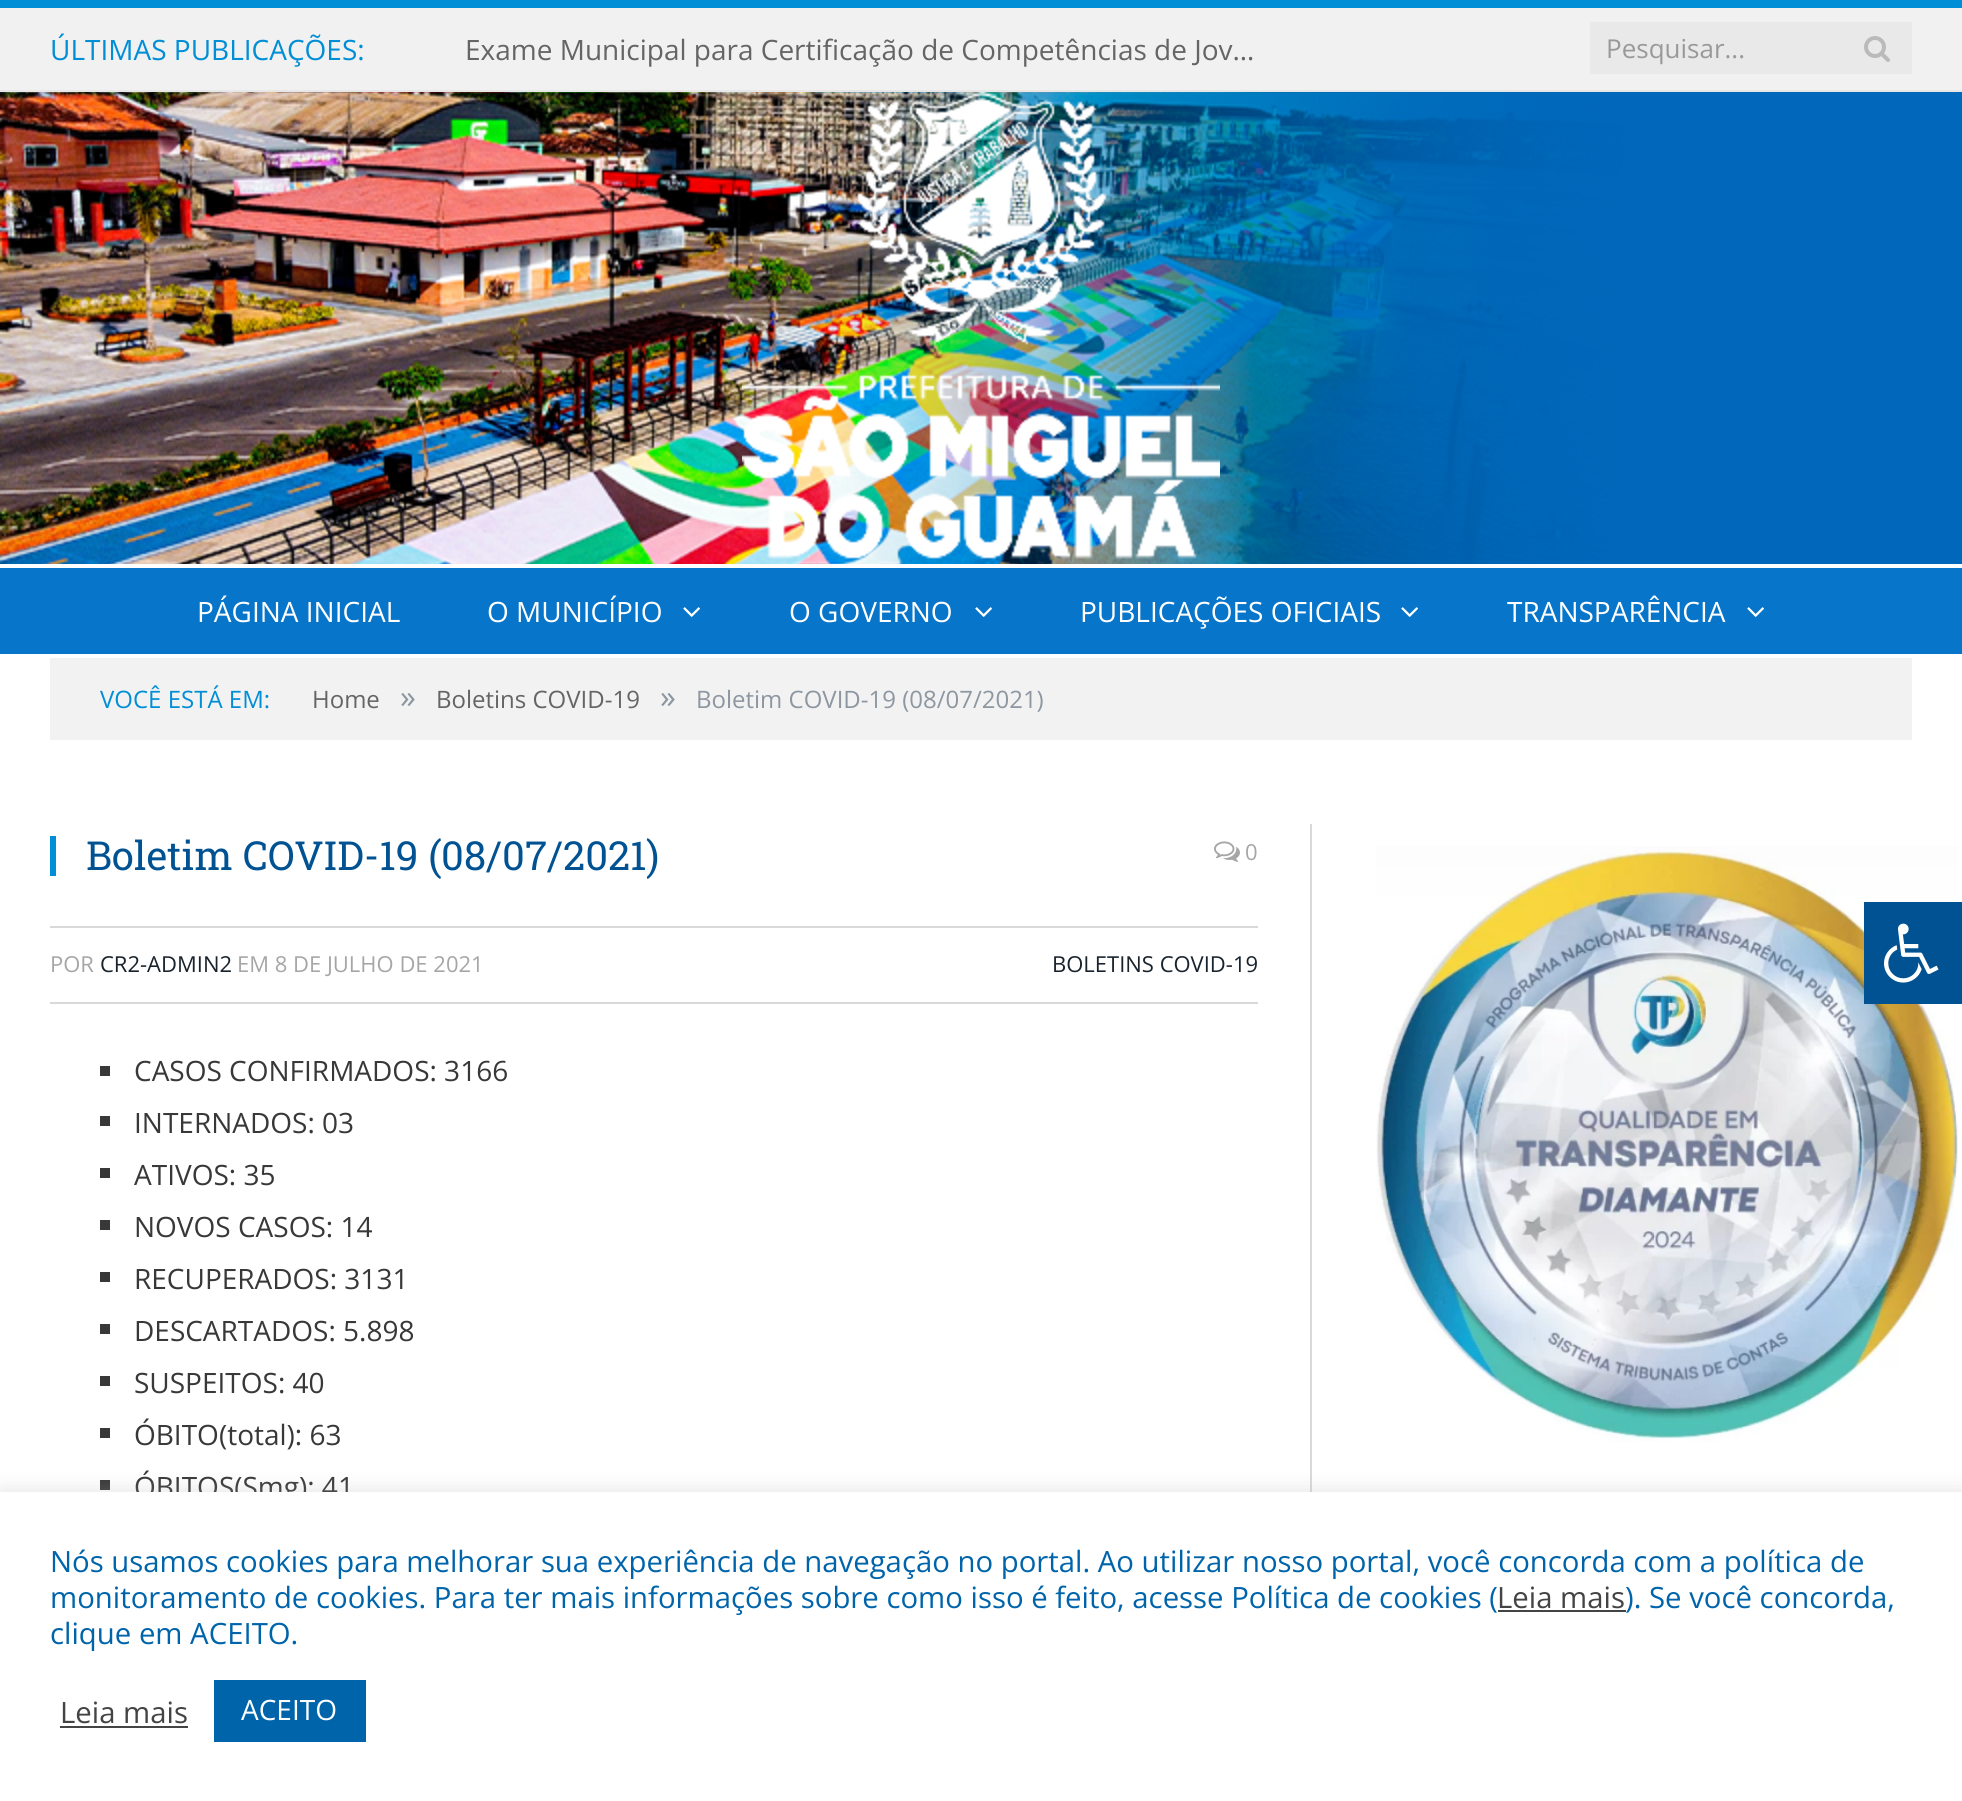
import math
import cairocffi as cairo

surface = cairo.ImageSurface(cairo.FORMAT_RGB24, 1962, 1801)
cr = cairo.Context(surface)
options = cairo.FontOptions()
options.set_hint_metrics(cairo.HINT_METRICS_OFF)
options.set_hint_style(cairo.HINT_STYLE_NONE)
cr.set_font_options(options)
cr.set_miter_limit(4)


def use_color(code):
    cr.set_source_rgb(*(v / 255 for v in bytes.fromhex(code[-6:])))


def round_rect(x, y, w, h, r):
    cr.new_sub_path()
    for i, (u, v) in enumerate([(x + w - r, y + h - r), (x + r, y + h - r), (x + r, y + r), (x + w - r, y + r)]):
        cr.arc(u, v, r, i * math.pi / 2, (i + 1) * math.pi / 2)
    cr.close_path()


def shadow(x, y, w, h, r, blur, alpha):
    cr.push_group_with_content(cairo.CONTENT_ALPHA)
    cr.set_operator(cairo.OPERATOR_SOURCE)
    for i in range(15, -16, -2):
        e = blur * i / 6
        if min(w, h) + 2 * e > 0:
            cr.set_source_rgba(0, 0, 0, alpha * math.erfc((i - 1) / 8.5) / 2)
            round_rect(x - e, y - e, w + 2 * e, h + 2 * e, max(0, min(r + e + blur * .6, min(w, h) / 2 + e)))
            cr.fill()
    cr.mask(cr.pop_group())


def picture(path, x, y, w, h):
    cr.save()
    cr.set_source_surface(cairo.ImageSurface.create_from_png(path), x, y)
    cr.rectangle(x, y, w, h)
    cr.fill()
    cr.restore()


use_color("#ffffff")
cr.paint()
use_color("#f1f1f1")
cr.rectangle(0, 8, 1962, 82)
cr.fill()
use_color("#008ed6")
cr.rectangle(0, 0, 1962, 8)
cr.fill()
use_color("#e7e7e7")
cr.rectangle(0, 90, 1962, 2)
cr.fill()
cr.select_font_face("Open Sans")
cr.set_font_size(28)
use_color("#008ed6")
cr.move_to(50, 60)
cr.show_text("ÚLTIMAS PUBLICAÇÕES:")
use_color("#656565")
cr.move_to(465, 60)
cr.show_text("Exame Municipal para Certificação de Competências de Jov…")
use_color("#e9e9e9")
cr.rectangle(1590, 22, 322, 52)
cr.fill()
cr.set_font_size(26)
use_color("#999999")
cr.move_to(1606, 58)
cr.show_text("Pesquisar...")
picture("img1.png", 1864, 36, 26, 26)
picture("img2.png", 0, 92, 1962, 472)
picture("img3.png", 742, 92, 478, 467)
use_color("#0775ca")
cr.rectangle(0, 568, 1962, 86)
cr.fill()
cr.set_font_size(28)
use_color("#ffffff")
cr.move_to(197, 622)
cr.show_text("PÁGINA INICIAL")
cr.move_to(487, 622)
cr.show_text("O MUNICÍPIO")
picture("img4.png", 683, 607, 17, 10)
cr.move_to(789, 622)
cr.show_text("O GOVERNO")
picture("img4.png", 975, 607, 17, 10)
cr.move_to(1080, 622)
cr.show_text("PUBLICAÇÕES OFICIAIS")
picture("img4.png", 1401, 607, 17, 10)
cr.move_to(1507, 622)
cr.show_text("TRANSPARÊNCIA")
picture("img4.png", 1747, 607, 17, 10)
use_color("#f2f2f2")
cr.rectangle(50, 658, 1862, 82)
cr.fill()
cr.set_font_size(24)
use_color("#008ed6")
cr.move_to(100, 708)
cr.show_text("VOCÊ ESTÁ EM:")
use_color("#656565")
cr.move_to(312, 708)
cr.show_text("Home")
cr.set_font_size(32)
use_color("#8d97a1")
cr.move_to(400, 708)
cr.show_text("»")
cr.set_font_size(24)
use_color("#656565")
cr.move_to(436, 708)
cr.show_text("Boletins COVID-19")
cr.set_font_size(32)
use_color("#8d97a1")
cr.move_to(660, 708)
cr.show_text("»")
cr.set_font_size(24)
cr.move_to(696, 708)
cr.show_text("Boletim COVID-19 (08/07/2021)")
use_color("#008ed6")
cr.rectangle(50, 836, 6, 40)
cr.fill()
cr.select_font_face("Roboto Slab")
cr.set_font_size(40)
use_color("#005292")
cr.move_to(86, 870)
cr.show_text("Boletim COVID-19 (08/07/2021)")
picture("img5.png", 1214, 841, 26, 21)
cr.select_font_face("Open Sans")
cr.set_font_size(22)
use_color("#a6a6a6")
cr.move_to(1245, 860)
cr.show_text("0")
use_color("#d9d9d9")
cr.rectangle(50, 926, 1208, 2)
cr.fill()
cr.rectangle(50, 1002, 1208, 2)
cr.fill()
use_color("#a6a6a6")
cr.move_to(50, 972)
cr.show_text("POR")
use_color("#19232d")
cr.move_to(100, 972)
cr.show_text("CR2-ADMIN2")
use_color("#a6a6a6")
cr.move_to(237, 972)
cr.show_text("EM 8 DE JULHO DE 2021")
use_color("#19232d")
cr.move_to(1052, 972)
cr.show_text("BOLETINS COVID-19")
use_color("#383838")
cr.rectangle(100, 1066, 10, 10)
cr.fill()
cr.set_font_size(28)
cr.move_to(134, 1081)
cr.show_text("CASOS CONFIRMADOS: 3166")
cr.rectangle(100, 1116, 10, 10)
cr.fill()
cr.move_to(134, 1133)
cr.show_text("INTERNADOS: 03")
cr.rectangle(100, 1168, 10, 10)
cr.fill()
cr.move_to(134, 1185)
cr.show_text("ATIVOS: 35")
cr.rectangle(100, 1220, 10, 10)
cr.fill()
cr.move_to(134, 1237)
cr.show_text("NOVOS CASOS: 14")
cr.rectangle(100, 1272, 10, 10)
cr.fill()
cr.move_to(134, 1289)
cr.show_text("RECUPERADOS: 3131")
cr.rectangle(100, 1324, 10, 10)
cr.fill()
cr.move_to(134, 1341)
cr.show_text("DESCARTADOS: 5.898")
cr.rectangle(100, 1376, 10, 10)
cr.fill()
cr.move_to(134, 1393)
cr.show_text("SUSPEITOS: 40")
cr.rectangle(100, 1428, 10, 10)
cr.fill()
cr.move_to(134, 1445)
cr.show_text("ÓBITO(total): 63")
cr.rectangle(100, 1480, 10, 10)
cr.fill()
cr.move_to(134, 1497)
cr.show_text("ÓBITOS(Smg): 41")
use_color("#d9d9d9")
cr.rectangle(1310, 824, 2, 668)
cr.fill()
picture("img6.png", 1376, 846, 582, 596)
use_color("#005292")
cr.rectangle(1864, 902, 98, 102)
cr.fill()
picture("img7.png", 1884, 923, 55, 60)
use_color("#acabab")
shadow(0, 1490, 1962, 310, 0, 10, 0.3)
use_color("#ffffff")
cr.rectangle(0, 1492, 1962, 309)
cr.fill()
cr.set_font_size(29.33)
use_color("#0064ab")
cr.move_to(50, 1572)
cr.show_text("Nós usamos cookies para melhorar sua experiência de navegação no portal. Ao utilizar nosso portal, você concorda com a política de")
cr.move_to(50, 1608)
cr.show_text("monitoramento de cookies. Para ter mais informações sobre como isso é feito, acesse Política de cookies (")
use_color("#444444")
cr.move_to(1497, 1608)
cr.show_text("Leia mais")
cr.rectangle(1498, 1610, 128, 2)
cr.fill()
use_color("#0064ab")
cr.move_to(1625, 1608)
cr.show_text("). Se você concorda,")
cr.move_to(50, 1644)
cr.show_text("clique em ACEITO.")
use_color("#444444")
cr.move_to(60, 1723)
cr.show_text("Leia mais")
cr.rectangle(60, 1726, 128, 2)
cr.fill()
use_color("#0064ab")
cr.rectangle(214, 1680, 152, 62)
cr.fill()
cr.set_font_size(28)
use_color("#ffffff")
cr.move_to(241, 1720)
cr.show_text("ACEITO")
surface.write_to_png("result.png")
